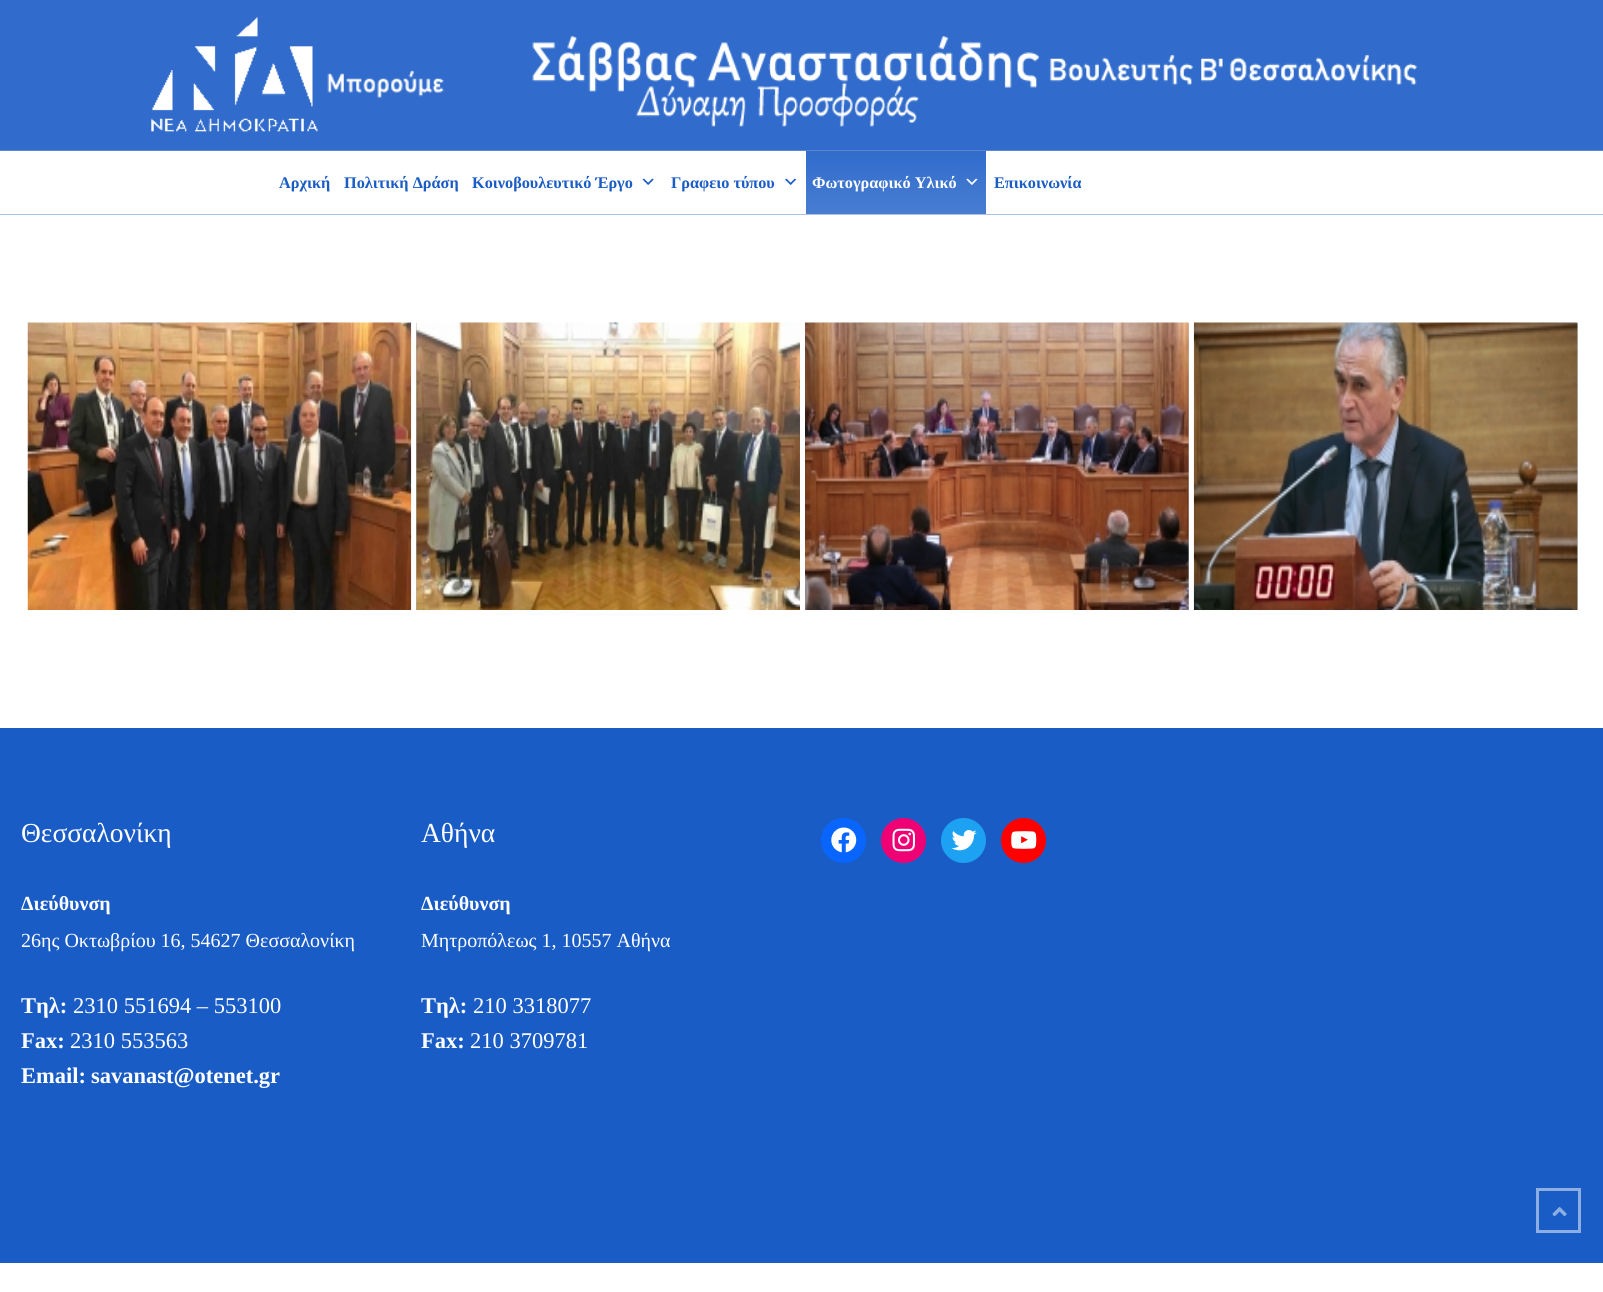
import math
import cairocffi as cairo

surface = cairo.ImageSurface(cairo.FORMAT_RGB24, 1603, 1292)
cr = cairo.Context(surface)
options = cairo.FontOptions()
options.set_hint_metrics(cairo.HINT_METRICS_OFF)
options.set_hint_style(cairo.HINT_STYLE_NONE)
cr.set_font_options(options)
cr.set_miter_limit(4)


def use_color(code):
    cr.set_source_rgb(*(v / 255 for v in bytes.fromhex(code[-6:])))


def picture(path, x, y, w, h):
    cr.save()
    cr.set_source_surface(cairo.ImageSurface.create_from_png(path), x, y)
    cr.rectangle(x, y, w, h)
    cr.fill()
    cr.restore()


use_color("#ffffff")
cr.paint()
use_color("#a9c2ea")
cr.rectangle(0, 214, 1603, 1)
cr.fill()
use_color("#316ccc")
cr.rectangle(0, 0, 1603, 150)
cr.fill()
use_color("#5d89ce")
cr.rectangle(0, 150, 1603, 1)
cr.fill()
picture("img1.png", 151, 17, 1267, 115)
cr.select_font_face("Liberation Serif", cairo.FONT_SLANT_NORMAL, cairo.FONT_WEIGHT_BOLD)
cr.set_font_size(16.25)
use_color("#1a5cc6")
cr.move_to(279, 188)
cr.show_text("Αρχική")
cr.move_to(344, 188)
cr.show_text("Πολιτική Δράση")
cr.move_to(472, 188)
cr.show_text("Κοινοβουλευτικό Έργο")
picture("img2.png", 642, 178, 12, 7)
cr.move_to(671, 188)
cr.show_text("Γραφειο τύπου")
picture("img3.png", 785, 178, 12, 7)
gradient = cairo.LinearGradient(896, 151, 896, 214)
gradient.add_color_stop_rgba(0, 0.192, 0.424, 0.8, 1)
gradient.add_color_stop_rgba(1, 0.282, 0.49, 0.82, 1)
cr.set_source(gradient)
cr.rectangle(806, 151, 180, 63)
cr.fill()
use_color("#ffffff")
cr.move_to(812, 188)
cr.show_text("Φωτογραφικό Υλικό")
picture("img4.png", 966, 178, 12, 7)
use_color("#1a5cc6")
cr.move_to(994, 188)
cr.show_text("Επικοινωνία")
picture("img5.png", 27, 322, 385, 288)
use_color("#b3b3b3")
cr.rectangle(416, 323, 1, 287)
cr.fill()
picture("img6.png", 416, 322, 384, 288)
cr.rectangle(1188, 323, 1, 287)
cr.fill()
picture("img7.png", 805, 322, 384, 288)
cr.rectangle(1577, 323, 1, 287)
cr.fill()
picture("img8.png", 1193, 322, 385, 288)
use_color("#1a5cc6")
cr.rectangle(0, 728, 1603, 535)
cr.fill()
cr.select_font_face("Liberation Serif")
cr.set_font_size(27.5)
use_color("#ffffff")
cr.move_to(21, 842)
cr.show_text("Θεσσαλονίκη")
cr.select_font_face("Liberation Serif", cairo.FONT_SLANT_NORMAL, cairo.FONT_WEIGHT_BOLD)
cr.set_font_size(20)
cr.move_to(21, 910)
cr.show_text("Διεύθυνση")
cr.select_font_face("Liberation Serif")
cr.move_to(21, 947)
cr.show_text("26ης Οκτωβρίου 16, 54627 Θεσσαλονίκη")
cr.select_font_face("Liberation Serif", cairo.FONT_SLANT_NORMAL, cairo.FONT_WEIGHT_BOLD)
cr.set_font_size(22.5)
cr.move_to(21, 1013)
cr.show_text("Τηλ:")
cr.select_font_face("Liberation Serif")
cr.move_to(73, 1013)
cr.show_text("2310 551694 – 553100")
cr.select_font_face("Liberation Serif", cairo.FONT_SLANT_NORMAL, cairo.FONT_WEIGHT_BOLD)
cr.move_to(21, 1048)
cr.show_text("Fax:")
cr.select_font_face("Liberation Serif")
cr.move_to(70, 1048)
cr.show_text("2310 553563")
cr.select_font_face("Liberation Serif", cairo.FONT_SLANT_NORMAL, cairo.FONT_WEIGHT_BOLD)
cr.move_to(21, 1083)
cr.show_text("Εmail:")
cr.move_to(91, 1083)
cr.show_text("savanast@otenet.gr")
cr.select_font_face("Liberation Serif")
cr.set_font_size(27.5)
cr.move_to(421, 842)
cr.show_text("Αθήνα")
cr.select_font_face("Liberation Serif", cairo.FONT_SLANT_NORMAL, cairo.FONT_WEIGHT_BOLD)
cr.set_font_size(20)
cr.move_to(421, 910)
cr.show_text("Διεύθυνση")
cr.select_font_face("Liberation Serif")
cr.move_to(421, 947)
cr.show_text("Μητροπόλεως 1, 10557 Αθήνα")
cr.select_font_face("Liberation Serif", cairo.FONT_SLANT_NORMAL, cairo.FONT_WEIGHT_BOLD)
cr.set_font_size(22.5)
cr.move_to(421, 1013)
cr.show_text("Τηλ:")
cr.select_font_face("Liberation Serif")
cr.move_to(473, 1013)
cr.show_text("210 3318077")
cr.select_font_face("Liberation Serif", cairo.FONT_SLANT_NORMAL, cairo.FONT_WEIGHT_BOLD)
cr.move_to(421, 1048)
cr.show_text("Fax:")
cr.select_font_face("Liberation Serif")
cr.move_to(470, 1048)
cr.show_text("210 3709781")
use_color("#0866ff")
cr.new_path()
cr.arc(843.5, 840.5, 22.5, 0, 2 * math.pi)
cr.fill()
picture("img9.png", 831, 827, 26, 26)
use_color("#f00075")
cr.arc(903.5, 840.5, 22.5, 0, 2 * math.pi)
cr.fill()
picture("img10.png", 892, 828, 23, 24)
use_color("#1da1f2")
cr.arc(963.5, 840.5, 22.5, 0, 2 * math.pi)
cr.fill()
picture("img11.png", 951, 830, 26, 21)
use_color("#ff0000")
cr.arc(1023.5, 840.5, 22.5, 0, 2 * math.pi)
cr.fill()
picture("img12.png", 1011, 831, 26, 18)
cr.rectangle(1537.5, 1189.5, 42, 42)
use_color("#8daee3")
cr.set_line_width(3)
cr.stroke()
picture("img13.png", 1552, 1207, 15, 9)
surface.write_to_png("result.png")
